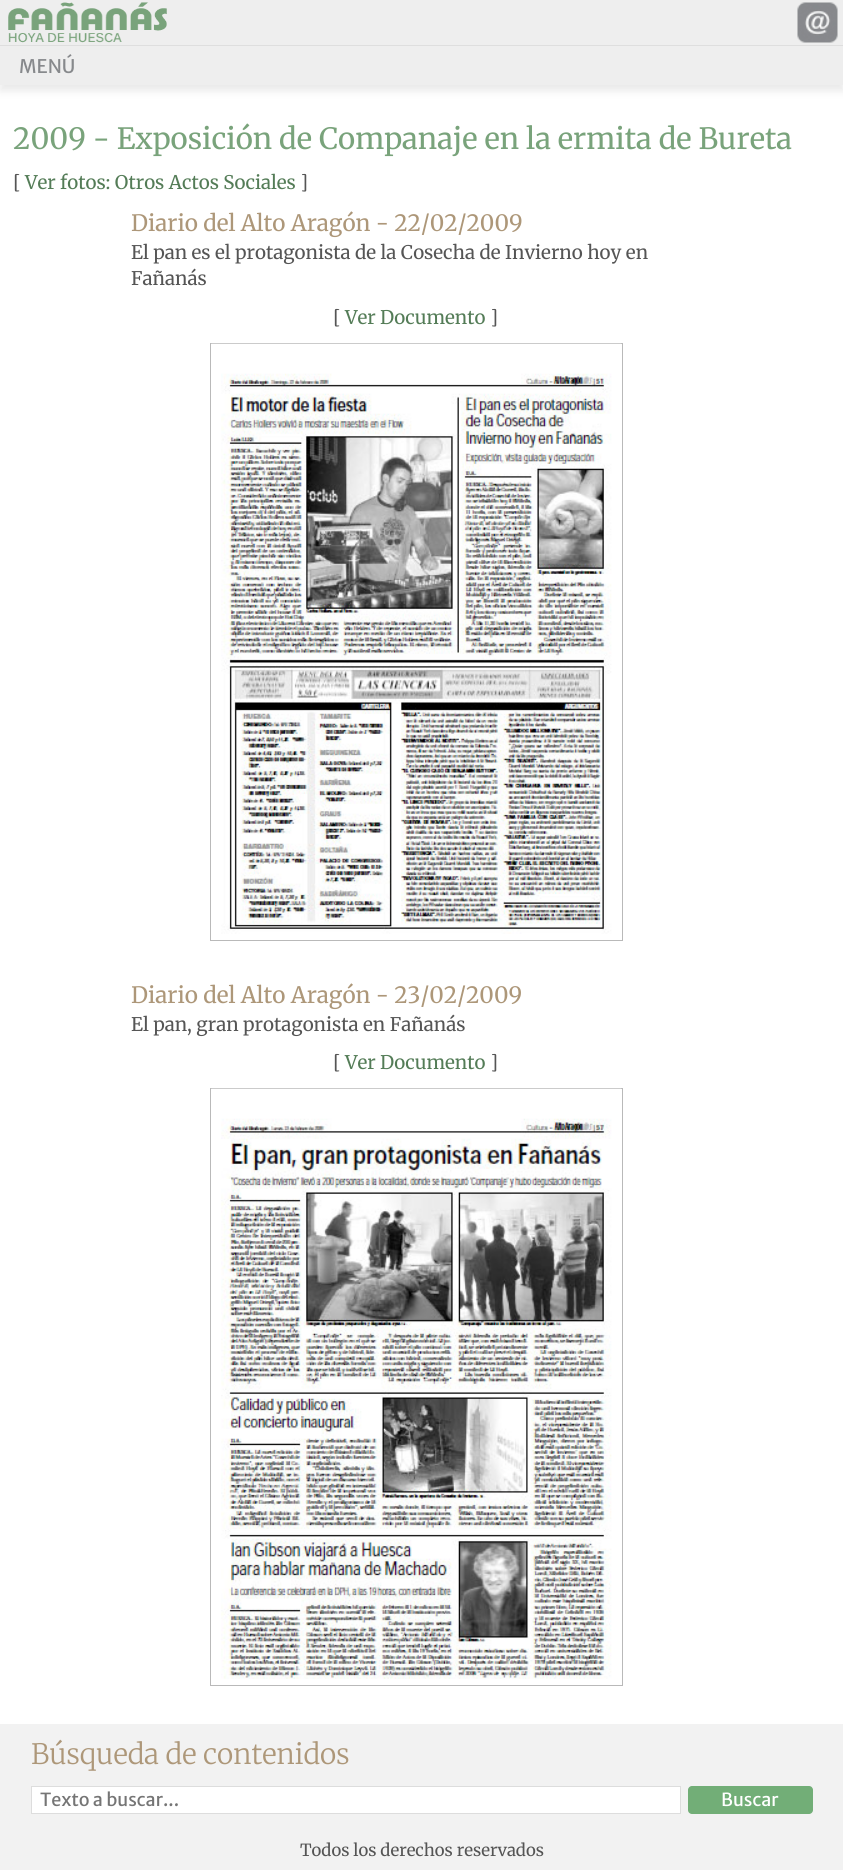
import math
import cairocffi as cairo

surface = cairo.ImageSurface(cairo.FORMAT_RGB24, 843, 1870)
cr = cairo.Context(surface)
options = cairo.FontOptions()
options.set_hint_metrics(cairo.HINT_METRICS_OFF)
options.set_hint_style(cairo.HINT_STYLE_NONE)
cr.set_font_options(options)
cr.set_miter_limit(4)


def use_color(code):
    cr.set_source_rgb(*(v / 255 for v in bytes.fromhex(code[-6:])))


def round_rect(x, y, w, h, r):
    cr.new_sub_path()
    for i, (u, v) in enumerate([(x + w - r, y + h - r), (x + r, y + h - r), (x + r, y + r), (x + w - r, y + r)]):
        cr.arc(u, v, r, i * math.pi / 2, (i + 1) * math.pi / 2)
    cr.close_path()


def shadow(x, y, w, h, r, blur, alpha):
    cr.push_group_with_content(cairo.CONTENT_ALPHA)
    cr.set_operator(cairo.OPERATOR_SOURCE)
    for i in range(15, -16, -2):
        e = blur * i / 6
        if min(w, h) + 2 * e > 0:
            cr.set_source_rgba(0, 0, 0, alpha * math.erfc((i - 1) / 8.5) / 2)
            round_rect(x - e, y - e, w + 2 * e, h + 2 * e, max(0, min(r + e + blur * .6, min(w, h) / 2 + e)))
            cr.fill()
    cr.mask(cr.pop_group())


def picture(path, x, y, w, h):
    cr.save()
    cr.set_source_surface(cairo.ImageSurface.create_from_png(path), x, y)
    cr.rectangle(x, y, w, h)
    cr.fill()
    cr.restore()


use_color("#ffffff")
cr.paint()
use_color("#eeeeee")
cr.rectangle(0, 0, 843, 45)
cr.fill()
picture("img1.png", 8, 2, 159, 41)
picture("img2.png", 797, 2, 41, 41)
use_color("#d4d4d4")
shadow(0, 53, 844, 38, 0, 4, 0.5)
use_color("#eeeeee")
cr.rectangle(0, 46, 843, 39)
cr.fill()
use_color("#dedede")
cr.rectangle(0, 45, 843, 1)
cr.fill()
cr.select_font_face("Merriweather Sans")
cr.set_font_size(18.75)
use_color("#87898c")
cr.move_to(19, 73)
cr.show_text("MENÚ")
cr.select_font_face("Merriweather Light")
cr.set_font_size(29.25)
use_color("#79a37b")
cr.move_to(13, 149)
cr.show_text("2009 - Exposición de Companaje en la ermita de Bureta")
cr.set_font_size(18.75)
use_color("#555555")
cr.move_to(13, 189)
cr.show_text("[")
use_color("#547c57")
cr.move_to(25, 189)
cr.show_text("Ver fotos: Otros Actos Sociales")
use_color("#555555")
cr.move_to(300, 189)
cr.show_text("]")
cr.set_font_size(22.5)
use_color("#ad9779")
cr.move_to(131, 231)
cr.show_text("Diario del Alto Aragón - 22/02/2009")
cr.set_font_size(18.75)
use_color("#555555")
cr.move_to(131, 259)
cr.show_text("El pan es el protagonista de la Cosecha de Invierno hoy en")
cr.move_to(131, 285)
cr.show_text("Fañanás")
cr.move_to(333, 324)
cr.show_text("[")
use_color("#547c57")
cr.move_to(345, 324)
cr.show_text("Ver Documento")
use_color("#555555")
cr.move_to(490, 324)
cr.show_text("]")
cr.rectangle(210.5, 343.5, 412, 597)
use_color("#b9b9b9")
cr.set_line_width(1)
cr.stroke()
picture("img3.png", 211, 343, 411, 591)
cr.set_font_size(22.5)
use_color("#ad9779")
cr.move_to(131, 1003)
cr.show_text("Diario del Alto Aragón - 23/02/2009")
cr.set_font_size(18.75)
use_color("#555555")
cr.move_to(131, 1031)
cr.show_text("El pan, gran protagonista en Fañanás")
cr.move_to(333, 1069)
cr.show_text("[")
use_color("#547c57")
cr.move_to(345, 1069)
cr.show_text("Ver Documento")
use_color("#555555")
cr.move_to(490, 1069)
cr.show_text("]")
cr.rectangle(210.5, 1088.5, 412, 597)
use_color("#b9b9b9")
cr.stroke()
picture("img4.png", 211, 1088, 411, 591)
use_color("#f2f2f2")
cr.rectangle(0, 1724, 843, 146)
cr.fill()
cr.select_font_face("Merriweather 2 Light")
cr.set_font_size(28)
use_color("#ad9779")
cr.move_to(31, 1764)
cr.show_text("Búsqueda de contenidos")
use_color("#ffffff")
cr.rectangle(31.5, 1786.5, 649, 27)
cr.fill_preserve()
use_color("#dddddd")
cr.stroke()
cr.select_font_face("Merriweather Sans")
cr.set_font_size(18)
use_color("#757575")
cr.move_to(40, 1806)
cr.show_text("Texto a buscar...")
use_color("#72ae77")
round_rect(688, 1786, 125, 28, 4)
cr.fill()
use_color("#ffffff")
cr.move_to(721, 1806)
cr.show_text("Buscar")
cr.select_font_face("Merriweather Light")
cr.set_font_size(16.7)
use_color("#555555")
cr.move_to(300, 1856)
cr.show_text("Todos los derechos reservados")
surface.write_to_png("result.png")
